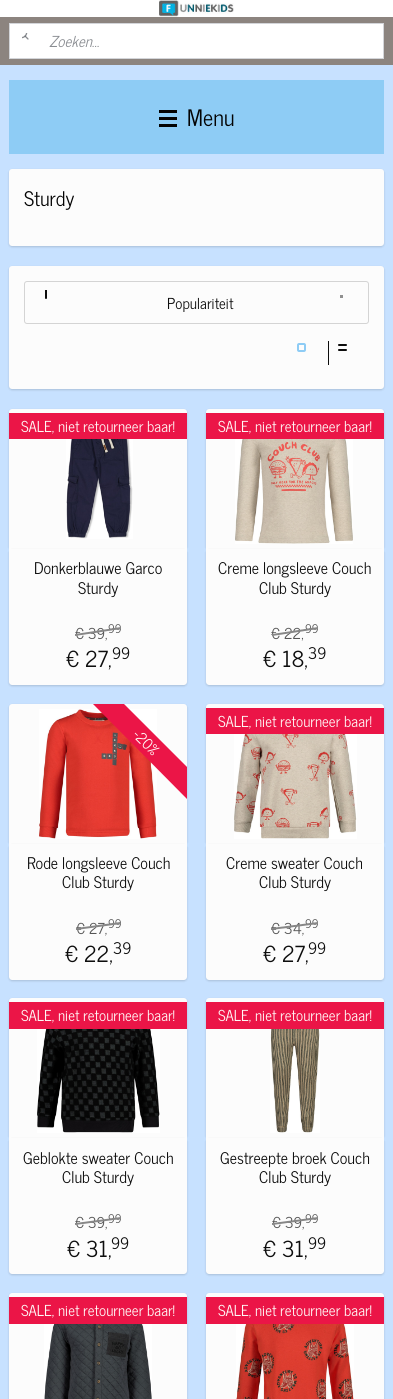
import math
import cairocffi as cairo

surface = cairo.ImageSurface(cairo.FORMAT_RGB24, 393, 1399)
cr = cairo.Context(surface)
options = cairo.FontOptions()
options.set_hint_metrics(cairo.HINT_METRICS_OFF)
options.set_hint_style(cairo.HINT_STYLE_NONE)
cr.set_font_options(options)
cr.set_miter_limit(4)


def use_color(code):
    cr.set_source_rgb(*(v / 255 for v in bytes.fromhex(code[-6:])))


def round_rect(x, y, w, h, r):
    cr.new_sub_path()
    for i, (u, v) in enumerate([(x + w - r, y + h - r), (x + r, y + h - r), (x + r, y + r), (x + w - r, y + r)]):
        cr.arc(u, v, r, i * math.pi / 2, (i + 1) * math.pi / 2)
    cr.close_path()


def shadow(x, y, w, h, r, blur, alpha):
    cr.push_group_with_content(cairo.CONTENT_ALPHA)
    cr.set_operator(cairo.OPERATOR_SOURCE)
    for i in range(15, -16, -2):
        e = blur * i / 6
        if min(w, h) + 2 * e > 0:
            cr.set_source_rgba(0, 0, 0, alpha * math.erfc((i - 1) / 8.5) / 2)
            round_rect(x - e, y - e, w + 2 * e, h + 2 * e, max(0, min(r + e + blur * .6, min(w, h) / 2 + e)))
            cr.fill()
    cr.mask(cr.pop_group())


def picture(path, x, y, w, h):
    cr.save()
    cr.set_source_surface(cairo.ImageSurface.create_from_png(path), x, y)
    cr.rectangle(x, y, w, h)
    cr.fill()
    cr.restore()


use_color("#c7e1ff")
cr.paint()
use_color("#ffffff")
cr.rectangle(0, 0, 393, 17)
cr.fill()
picture("img1.png", 159, 0, 75, 17)
use_color("#8c847f")
cr.rectangle(0, 17, 393, 48)
cr.fill()
use_color("#ffffff")
cr.rectangle(9.5, 23.5, 374, 35)
cr.fill_preserve()
use_color("#d3d5d9")
cr.set_line_width(1)
cr.stroke()
picture("img2.png", 22, 33, 7, 7)
cr.select_font_face("News Cycle", cairo.FONT_SLANT_ITALIC)
cr.set_font_size(15)
use_color("#898c91")
cr.move_to(49, 47)
cr.show_text("Zoeken...")
use_color("#8eccf5")
cr.rectangle(9, 80, 375, 74)
cr.fill()
use_color("#030303")
cr.rectangle(159, 117, 18, 3)
cr.fill()
cr.rectangle(159, 110, 18, 3)
cr.fill()
cr.rectangle(159, 124, 18, 3)
cr.fill()
cr.select_font_face("News Cycle")
cr.set_font_size(22.5)
cr.move_to(187, 126)
cr.show_text("Menu")
use_color("#000000")
shadow(9, 170, 375, 77, 3, 1, 0.15)
use_color("#fcfcfc")
round_rect(9, 169, 375, 77, 3)
cr.fill()
cr.set_font_size(20)
use_color("#030303")
cr.move_to(24, 206)
cr.show_text("Sturdy")
use_color("#000000")
shadow(9, 267, 375, 123, 3, 1, 0.15)
use_color("#fcfcfc")
round_rect(9, 266, 375, 123, 3)
cr.fill()
round_rect(24.5, 281.5, 344, 42, 2.5)
use_color("#d4d4d4")
cr.stroke()
picture("img3.png", 45, 290, 2, 9)
use_color("#909090")
cr.rectangle(340, 295, 3, 3)
cr.fill()
cr.set_font_size(15)
use_color("#0d0d0d")
cr.move_to(167, 309)
cr.show_text("Populariteit")
picture("img4.png", 297, 343, 9, 9)
cr.rectangle(328, 341, 1, 24)
cr.fill()
picture("img5.png", 338, 344, 9, 7)
use_color("#000000")
shadow(9, 410, 178, 140, 3, 1, 0.15)
use_color("#fcfcfc")
cr.new_path()
cr.move_to(12, 409)
cr.line_to(184, 409)
cr.curve_to(185.5, 409, 187, 410.5, 187, 412)
cr.line_to(187, 549)
cr.line_to(9, 549)
cr.line_to(9, 412)
cr.curve_to(9, 410.5, 10.5, 409, 12, 409)
cr.close_path()
cr.fill()
use_color("#eb1547")
cr.rectangle(9, 413, 178, 26)
cr.fill()
use_color("#fff9f7")
cr.move_to(21, 432)
cr.show_text("SALE, niet retourneer baar!")
picture("img6.png", 66, 439, 67, 100)
use_color("#000000")
shadow(9, 550, 178, 136, 3, 1, 0.15)
use_color("#fcfcfc")
cr.new_path()
cr.move_to(9, 549)
cr.line_to(187, 549)
cr.line_to(187, 682)
cr.curve_to(187, 683.5, 185.5, 685, 184, 685)
cr.line_to(12, 685)
cr.curve_to(10.5, 685, 9, 683.5, 9, 682)
cr.close_path()
cr.fill()
cr.set_font_size(16)
use_color("#0d0d0d")
cr.move_to(34, 574)
cr.show_text("Donkerblauwe Garco")
cr.move_to(78, 594)
cr.show_text("Sturdy")
cr.set_font_size(15)
use_color("#555555")
cr.move_to(75, 639)
cr.show_text("€ 39,")
cr.set_font_size(12)
cr.move_to(108, 633)
cr.show_text("99")
use_color("#878787")
cr.new_path()
cr.move_to(75, 634)
cr.line_to(121, 627)
cr.line_to(121, 629)
cr.line_to(75, 636)
cr.close_path()
cr.fill()
cr.set_font_size(22)
use_color("#0d0d0d")
cr.move_to(66, 667)
cr.show_text("€ 27,")
cr.set_font_size(16)
cr.move_to(112, 659)
cr.show_text("99")
use_color("#000000")
shadow(206, 410, 178, 140, 3, 1, 0.15)
use_color("#fcfcfc")
cr.new_path()
cr.move_to(209, 409)
cr.line_to(381, 409)
cr.curve_to(382.5, 409, 384, 410.5, 384, 412)
cr.line_to(384, 549)
cr.line_to(206, 549)
cr.line_to(206, 412)
cr.curve_to(206, 410.5, 207.5, 409, 209, 409)
cr.close_path()
cr.fill()
use_color("#eb1547")
cr.rectangle(206, 413, 178, 26)
cr.fill()
cr.set_font_size(15)
use_color("#fff9f7")
cr.move_to(218, 432)
cr.show_text("SALE, niet retourneer baar!")
picture("img7.png", 235, 439, 118, 105)
use_color("#000000")
shadow(206, 550, 178, 136, 3, 1, 0.15)
use_color("#fcfcfc")
cr.new_path()
cr.move_to(206, 549)
cr.line_to(384, 549)
cr.line_to(384, 682)
cr.curve_to(384, 683.5, 382.5, 685, 381, 685)
cr.line_to(209, 685)
cr.curve_to(207.5, 685, 206, 683.5, 206, 682)
cr.close_path()
cr.fill()
cr.set_font_size(16)
use_color("#0d0d0d")
cr.move_to(218, 574)
cr.show_text("Creme longsleeve Couch")
cr.move_to(259, 594)
cr.show_text("Club Sturdy")
cr.set_font_size(15)
use_color("#555555")
cr.move_to(271, 639)
cr.show_text("€ 22,")
cr.set_font_size(12)
cr.move_to(305, 633)
cr.show_text("99")
use_color("#878787")
cr.new_path()
cr.move_to(272, 634)
cr.line_to(318, 627)
cr.line_to(318, 629)
cr.line_to(272, 636)
cr.close_path()
cr.fill()
cr.set_font_size(22)
use_color("#0d0d0d")
cr.move_to(263, 667)
cr.show_text("€ 18,")
cr.set_font_size(16)
cr.move_to(308, 659)
cr.show_text("39")
use_color("#000000")
shadow(9, 705, 178, 140, 3, 1, 0.15)
use_color("#fcfcfc")
cr.new_path()
cr.move_to(12, 704)
cr.line_to(184, 704)
cr.curve_to(185.5, 704, 187, 705.5, 187, 707)
cr.line_to(187, 844)
cr.line_to(9, 844)
cr.line_to(9, 707)
cr.curve_to(9, 705.5, 10.5, 704, 12, 704)
cr.close_path()
cr.fill()
picture("img8.png", 39, 709, 118, 130)
use_color("#eb1547")
cr.new_path()
cr.move_to(187, 799)
cr.line_to(93, 704)
cr.line_to(124, 704)
cr.line_to(187, 767)
cr.close_path()
cr.fill()
cr.set_font_size(15)
use_color("#fff9f7")
cr.save()
cr.translate(132, 736)
cr.rotate(45 * math.pi / 180)
cr.move_to(0, 0)
cr.show_text("-20%")
cr.restore()
use_color("#000000")
shadow(9, 845, 178, 136, 3, 1, 0.15)
use_color("#fcfcfc")
cr.new_path()
cr.move_to(9, 844)
cr.line_to(187, 844)
cr.line_to(187, 977)
cr.curve_to(187, 978.5, 185.5, 980, 184, 980)
cr.line_to(12, 980)
cr.curve_to(10.5, 980, 9, 978.5, 9, 977)
cr.close_path()
cr.fill()
cr.set_font_size(16)
use_color("#0d0d0d")
cr.move_to(27, 869)
cr.show_text("Rode longsleeve Couch")
cr.move_to(62, 888)
cr.show_text("Club Sturdy")
cr.set_font_size(15)
use_color("#555555")
cr.move_to(76, 934)
cr.show_text("€ 27,")
cr.set_font_size(12)
cr.move_to(108, 928)
cr.show_text("99")
use_color("#878787")
cr.new_path()
cr.move_to(76, 928)
cr.line_to(120, 922)
cr.line_to(121, 924)
cr.line_to(76, 930)
cr.close_path()
cr.fill()
cr.set_font_size(22)
use_color("#0d0d0d")
cr.move_to(65, 962)
cr.show_text("€ 22,")
cr.set_font_size(16)
cr.move_to(113, 954)
cr.show_text("39")
use_color("#000000")
shadow(206, 705, 178, 140, 3, 1, 0.15)
use_color("#fcfcfc")
cr.new_path()
cr.move_to(209, 704)
cr.line_to(381, 704)
cr.curve_to(382.5, 704, 384, 705.5, 384, 707)
cr.line_to(384, 844)
cr.line_to(206, 844)
cr.line_to(206, 707)
cr.curve_to(206, 705.5, 207.5, 704, 209, 704)
cr.close_path()
cr.fill()
use_color("#eb1547")
cr.rectangle(206, 708, 178, 26)
cr.fill()
cr.set_font_size(15)
use_color("#fff9f7")
cr.move_to(218, 727)
cr.show_text("SALE, niet retourneer baar!")
picture("img9.png", 234, 734, 123, 105)
use_color("#000000")
shadow(206, 845, 178, 136, 3, 1, 0.15)
use_color("#fcfcfc")
cr.new_path()
cr.move_to(206, 844)
cr.line_to(384, 844)
cr.line_to(384, 977)
cr.curve_to(384, 978.5, 382.5, 980, 381, 980)
cr.line_to(209, 980)
cr.curve_to(207.5, 980, 206, 978.5, 206, 977)
cr.close_path()
cr.fill()
cr.set_font_size(16)
use_color("#0d0d0d")
cr.move_to(226, 869)
cr.show_text("Creme sweater Couch")
cr.move_to(259, 888)
cr.show_text("Club Sturdy")
cr.set_font_size(15)
use_color("#555555")
cr.move_to(271, 934)
cr.show_text("€ 34,")
cr.set_font_size(12)
cr.move_to(305, 928)
cr.show_text("99")
use_color("#878787")
cr.new_path()
cr.move_to(271, 928)
cr.line_to(318, 922)
cr.line_to(318, 924)
cr.line_to(271, 930)
cr.close_path()
cr.fill()
cr.set_font_size(22)
use_color("#0d0d0d")
cr.move_to(263, 962)
cr.show_text("€ 27,")
cr.set_font_size(16)
cr.move_to(308, 954)
cr.show_text("99")
use_color("#000000")
shadow(9, 999, 178, 140, 3, 1, 0.15)
use_color("#fcfcfc")
cr.new_path()
cr.move_to(12, 998)
cr.line_to(184, 998)
cr.curve_to(185.5, 998, 187, 999.5, 187, 1001)
cr.line_to(187, 1138)
cr.line_to(9, 1138)
cr.line_to(9, 1001)
cr.curve_to(9, 999.5, 10.5, 998, 12, 998)
cr.close_path()
cr.fill()
use_color("#eb1547")
cr.rectangle(9, 1002, 178, 27)
cr.fill()
cr.set_font_size(15)
use_color("#fff9f7")
cr.move_to(21, 1021)
cr.show_text("SALE, niet retourneer baar!")
picture("img10.png", 37, 1029, 123, 104)
use_color("#000000")
shadow(9, 1139, 178, 136, 3, 1, 0.15)
use_color("#fcfcfc")
cr.new_path()
cr.move_to(9, 1138)
cr.line_to(187, 1138)
cr.line_to(187, 1271)
cr.curve_to(187, 1272.5, 185.5, 1274, 184, 1274)
cr.line_to(12, 1274)
cr.curve_to(10.5, 1274, 9, 1272.5, 9, 1271)
cr.close_path()
cr.fill()
cr.set_font_size(16)
use_color("#0d0d0d")
cr.move_to(23, 1164)
cr.show_text("Geblokte sweater Couch")
cr.move_to(62, 1183)
cr.show_text("Club Sturdy")
cr.set_font_size(15)
use_color("#555555")
cr.move_to(75, 1228)
cr.show_text("€ 39,")
cr.set_font_size(12)
cr.move_to(108, 1223)
cr.show_text("99")
use_color("#878787")
cr.new_path()
cr.move_to(75, 1223)
cr.line_to(121, 1217)
cr.line_to(121, 1219)
cr.line_to(75, 1225)
cr.close_path()
cr.fill()
cr.set_font_size(22)
use_color("#0d0d0d")
cr.move_to(67, 1257)
cr.show_text("€ 31,")
cr.set_font_size(16)
cr.move_to(111, 1249)
cr.show_text("99")
use_color("#000000")
shadow(206, 999, 178, 140, 3, 1, 0.15)
use_color("#fcfcfc")
cr.new_path()
cr.move_to(209, 998)
cr.line_to(381, 998)
cr.curve_to(382.5, 998, 384, 999.5, 384, 1001)
cr.line_to(384, 1138)
cr.line_to(206, 1138)
cr.line_to(206, 1001)
cr.curve_to(206, 999.5, 207.5, 998, 209, 998)
cr.close_path()
cr.fill()
use_color("#eb1547")
cr.rectangle(206, 1002, 178, 27)
cr.fill()
cr.set_font_size(15)
use_color("#fff9f7")
cr.move_to(218, 1021)
cr.show_text("SALE, niet retourneer baar!")
picture("img11.png", 270, 1029, 50, 104)
use_color("#000000")
shadow(206, 1139, 178, 136, 3, 1, 0.15)
use_color("#fcfcfc")
cr.new_path()
cr.move_to(206, 1138)
cr.line_to(384, 1138)
cr.line_to(384, 1271)
cr.curve_to(384, 1272.5, 382.5, 1274, 381, 1274)
cr.line_to(209, 1274)
cr.curve_to(207.5, 1274, 206, 1272.5, 206, 1271)
cr.close_path()
cr.fill()
cr.set_font_size(16)
use_color("#0d0d0d")
cr.move_to(220, 1164)
cr.show_text("Gestreepte broek Couch")
cr.move_to(259, 1183)
cr.show_text("Club Sturdy")
cr.set_font_size(15)
use_color("#555555")
cr.move_to(272, 1228)
cr.show_text("€ 39,")
cr.set_font_size(12)
cr.move_to(305, 1223)
cr.show_text("99")
use_color("#878787")
cr.new_path()
cr.move_to(272, 1223)
cr.line_to(318, 1217)
cr.line_to(318, 1219)
cr.line_to(272, 1225)
cr.close_path()
cr.fill()
cr.set_font_size(22)
use_color("#0d0d0d")
cr.move_to(263, 1257)
cr.show_text("€ 31,")
cr.set_font_size(16)
cr.move_to(308, 1249)
cr.show_text("99")
use_color("#000000")
shadow(9, 1294, 178, 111, 3, 1, 0.15)
use_color("#fcfcfc")
cr.new_path()
cr.move_to(12, 1293)
cr.line_to(184, 1293)
cr.curve_to(185.5, 1293, 187, 1294.5, 187, 1296)
cr.line_to(187, 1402)
cr.line_to(9, 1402)
cr.line_to(9, 1296)
cr.curve_to(9, 1294.5, 10.5, 1293, 12, 1293)
cr.close_path()
cr.fill()
use_color("#eb1547")
cr.rectangle(9, 1297, 178, 27)
cr.fill()
cr.set_font_size(15)
use_color("#fff9f7")
cr.move_to(21, 1316)
cr.show_text("SALE, niet retourneer baar!")
picture("img12.png", 44, 1324, 108, 75)
use_color("#000000")
shadow(206, 1294, 178, 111, 3, 1, 0.15)
use_color("#fcfcfc")
cr.new_path()
cr.move_to(209, 1293)
cr.line_to(381, 1293)
cr.curve_to(382.5, 1293, 384, 1294.5, 384, 1296)
cr.line_to(384, 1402)
cr.line_to(206, 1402)
cr.line_to(206, 1296)
cr.curve_to(206, 1294.5, 207.5, 1293, 209, 1293)
cr.close_path()
cr.fill()
use_color("#eb1547")
cr.rectangle(206, 1297, 178, 27)
cr.fill()
use_color("#fff9f7")
cr.move_to(218, 1316)
cr.show_text("SALE, niet retourneer baar!")
picture("img13.png", 236, 1324, 118, 75)
surface.write_to_png("result.png")
